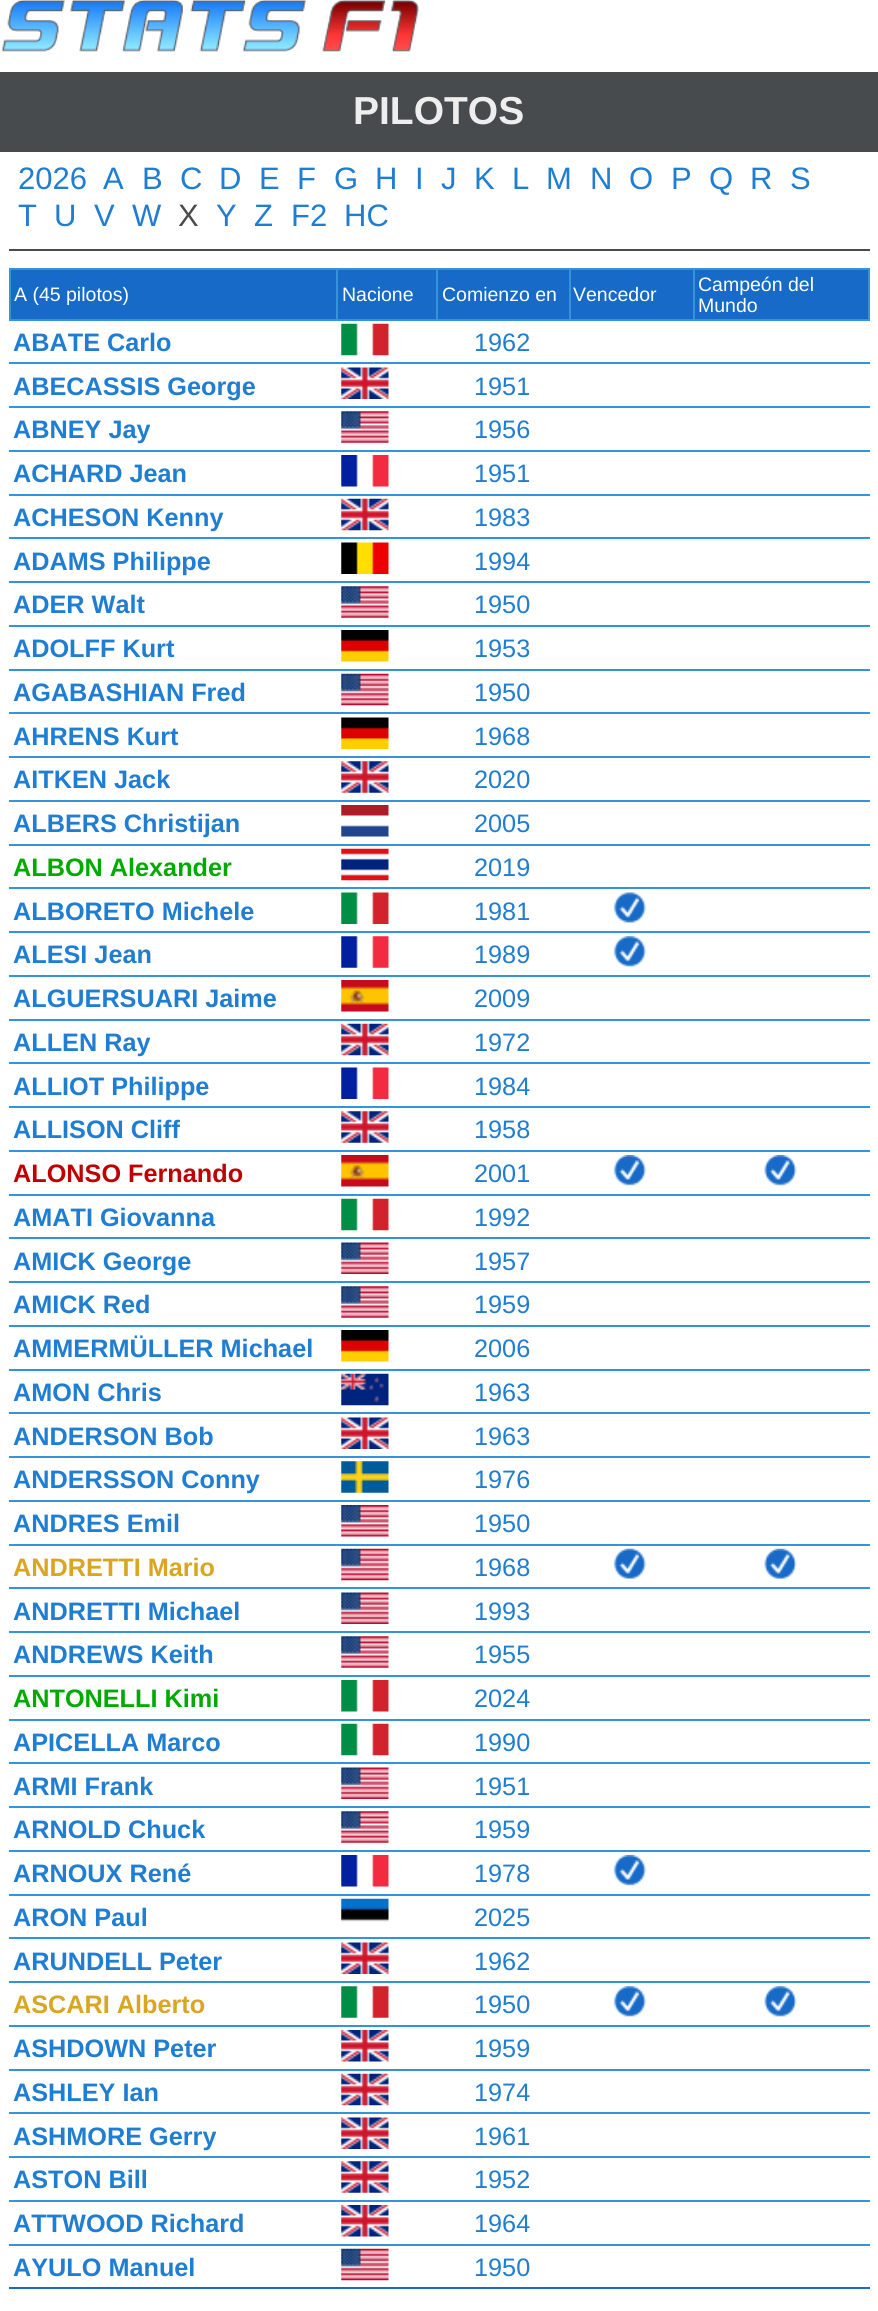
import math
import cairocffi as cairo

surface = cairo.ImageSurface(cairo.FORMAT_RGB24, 878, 2311)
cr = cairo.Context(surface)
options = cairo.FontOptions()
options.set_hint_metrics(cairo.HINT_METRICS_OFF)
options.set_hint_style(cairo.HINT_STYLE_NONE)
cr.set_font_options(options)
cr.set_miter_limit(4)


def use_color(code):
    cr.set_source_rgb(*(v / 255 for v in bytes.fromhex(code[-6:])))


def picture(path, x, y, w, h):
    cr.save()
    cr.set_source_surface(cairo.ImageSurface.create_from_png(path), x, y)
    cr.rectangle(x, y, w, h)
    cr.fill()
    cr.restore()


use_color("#ffffff")
cr.paint()
picture("img1.png", 1, 0, 418, 52)
use_color("#484b4d")
cr.rectangle(0, 72, 878, 80)
cr.fill()
cr.select_font_face("Liberation Sans", cairo.FONT_SLANT_NORMAL, cairo.FONT_WEIGHT_BOLD)
cr.set_font_size(39)
use_color("#eeeeee")
cr.move_to(353, 124)
cr.show_text("PILOTOS")
use_color("#4b4b4b")
cr.rectangle(9, 249, 861, 2)
cr.fill()
cr.select_font_face("Liberation Sans")
cr.set_font_size(31)
use_color("#1f7dd2")
cr.move_to(18, 189)
cr.show_text("2026")
cr.move_to(103, 189)
cr.show_text("A")
cr.move_to(142, 189)
cr.show_text("B")
cr.move_to(180, 189)
cr.show_text("C")
cr.move_to(219, 189)
cr.show_text("D")
cr.move_to(259, 189)
cr.show_text("E")
cr.move_to(297, 189)
cr.show_text("F")
cr.move_to(334, 189)
cr.show_text("G")
cr.move_to(375, 189)
cr.show_text("H")
cr.move_to(415, 189)
cr.show_text("I")
cr.move_to(441, 189)
cr.show_text("J")
cr.move_to(474, 189)
cr.show_text("K")
cr.move_to(512, 189)
cr.show_text("L")
cr.move_to(546, 189)
cr.show_text("M")
cr.move_to(590, 189)
cr.show_text("N")
cr.move_to(629, 189)
cr.show_text("O")
cr.move_to(671, 189)
cr.show_text("P")
cr.move_to(709, 189)
cr.show_text("Q")
cr.move_to(750, 189)
cr.show_text("R")
cr.move_to(790, 189)
cr.show_text("S")
cr.move_to(18, 226)
cr.show_text("T")
cr.move_to(54, 226)
cr.show_text("U")
cr.move_to(94, 226)
cr.show_text("V")
cr.move_to(132, 226)
cr.show_text("W")
use_color("#4b4b4b")
cr.move_to(178, 226)
cr.show_text("X")
use_color("#1f7dd2")
cr.move_to(216, 226)
cr.show_text("Y")
cr.move_to(254, 226)
cr.show_text("Z")
cr.move_to(291, 226)
cr.show_text("F2")
cr.move_to(344, 226)
cr.show_text("HC")
use_color("#176ac7")
cr.rectangle(11, 270, 325, 49)
cr.fill()
use_color("#3593da")
cr.rectangle(693, 268, 177, 2)
cr.fill()
cr.rectangle(9, 319, 861, 2)
cr.fill()
cr.rectangle(693, 268, 2, 52)
cr.fill()
cr.rectangle(569, 268, 126, 2)
cr.fill()
cr.rectangle(569, 268, 2, 52)
cr.fill()
cr.rectangle(436, 268, 135, 2)
cr.fill()
cr.rectangle(436, 268, 2, 52)
cr.fill()
cr.rectangle(336, 268, 102, 2)
cr.fill()
cr.rectangle(336, 268, 2, 52)
cr.fill()
cr.rectangle(9, 268, 329, 2)
cr.fill()
cr.rectangle(9, 268, 2, 52)
cr.fill()
cr.set_font_size(19.5)
use_color("#ffffff")
cr.move_to(14, 301)
cr.show_text("A (45 pilotos)")
use_color("#176ac7")
cr.rectangle(338, 270, 98, 49)
cr.fill()
use_color("#ffffff")
cr.move_to(342, 301)
cr.show_text("Nacione")
use_color("#176ac7")
cr.rectangle(438, 270, 131, 49)
cr.fill()
use_color("#ffffff")
cr.move_to(442, 301)
cr.show_text("Comienzo en")
use_color("#176ac7")
cr.rectangle(571, 270, 122, 49)
cr.fill()
use_color("#ffffff")
cr.move_to(573, 301)
cr.show_text("Vencedor")
use_color("#176ac7")
cr.rectangle(695, 270, 173, 49)
cr.fill()
use_color("#3593da")
cr.rectangle(868, 268, 2, 52)
cr.fill()
use_color("#ffffff")
cr.move_to(698, 291)
cr.show_text("Campeón del")
cr.move_to(698, 312)
cr.show_text("Mundo")
cr.select_font_face("Liberation Sans", cairo.FONT_SLANT_NORMAL, cairo.FONT_WEIGHT_BOLD)
cr.set_font_size(25.25)
use_color("#1f7dd2")
cr.move_to(13, 351)
cr.show_text("ABATE Carlo")
picture("img2.png", 341, 323, 48, 33)
cr.select_font_face("Liberation Sans")
cr.move_to(474, 351)
cr.show_text("1962")
use_color("#3593da")
cr.rectangle(9, 362, 861, 2)
cr.fill()
cr.select_font_face("Liberation Sans", cairo.FONT_SLANT_NORMAL, cairo.FONT_WEIGHT_BOLD)
use_color("#1f7dd2")
cr.move_to(13, 395)
cr.show_text("ABECASSIS George")
picture("img3.png", 341, 367, 48, 32)
cr.select_font_face("Liberation Sans")
cr.move_to(474, 395)
cr.show_text("1951")
use_color("#3593da")
cr.rectangle(9, 406, 861, 2)
cr.fill()
cr.select_font_face("Liberation Sans", cairo.FONT_SLANT_NORMAL, cairo.FONT_WEIGHT_BOLD)
use_color("#1f7dd2")
cr.move_to(13, 438)
cr.show_text("ABNEY Jay")
picture("img4.png", 341, 411, 48, 32)
cr.select_font_face("Liberation Sans")
cr.move_to(474, 438)
cr.show_text("1956")
use_color("#3593da")
cr.rectangle(9, 450, 861, 2)
cr.fill()
cr.select_font_face("Liberation Sans", cairo.FONT_SLANT_NORMAL, cairo.FONT_WEIGHT_BOLD)
use_color("#1f7dd2")
cr.move_to(13, 482)
cr.show_text("ACHARD Jean")
picture("img5.png", 341, 455, 48, 32)
cr.select_font_face("Liberation Sans")
cr.move_to(474, 482)
cr.show_text("1951")
use_color("#3593da")
cr.rectangle(9, 494, 861, 2)
cr.fill()
cr.select_font_face("Liberation Sans", cairo.FONT_SLANT_NORMAL, cairo.FONT_WEIGHT_BOLD)
use_color("#1f7dd2")
cr.move_to(13, 526)
cr.show_text("ACHESON Kenny")
picture("img6.png", 341, 498, 48, 33)
cr.select_font_face("Liberation Sans")
cr.move_to(474, 526)
cr.show_text("1983")
use_color("#3593da")
cr.rectangle(9, 537, 861, 2)
cr.fill()
cr.select_font_face("Liberation Sans", cairo.FONT_SLANT_NORMAL, cairo.FONT_WEIGHT_BOLD)
use_color("#1f7dd2")
cr.move_to(13, 570)
cr.show_text("ADAMS Philippe")
picture("img7.png", 341, 542, 48, 32)
cr.select_font_face("Liberation Sans")
cr.move_to(474, 570)
cr.show_text("1994")
use_color("#3593da")
cr.rectangle(9, 581, 861, 2)
cr.fill()
cr.select_font_face("Liberation Sans", cairo.FONT_SLANT_NORMAL, cairo.FONT_WEIGHT_BOLD)
use_color("#1f7dd2")
cr.move_to(13, 613)
cr.show_text("ADER Walt")
picture("img4.png", 341, 586, 48, 32)
cr.select_font_face("Liberation Sans")
cr.move_to(474, 613)
cr.show_text("1950")
use_color("#3593da")
cr.rectangle(9, 625, 861, 2)
cr.fill()
cr.select_font_face("Liberation Sans", cairo.FONT_SLANT_NORMAL, cairo.FONT_WEIGHT_BOLD)
use_color("#1f7dd2")
cr.move_to(13, 657)
cr.show_text("ADOLFF Kurt")
picture("img8.png", 341, 630, 48, 32)
cr.select_font_face("Liberation Sans")
cr.move_to(474, 657)
cr.show_text("1953")
use_color("#3593da")
cr.rectangle(9, 669, 861, 2)
cr.fill()
cr.select_font_face("Liberation Sans", cairo.FONT_SLANT_NORMAL, cairo.FONT_WEIGHT_BOLD)
use_color("#1f7dd2")
cr.move_to(13, 701)
cr.show_text("AGABASHIAN Fred")
picture("img9.png", 341, 673, 48, 33)
cr.select_font_face("Liberation Sans")
cr.move_to(474, 701)
cr.show_text("1950")
use_color("#3593da")
cr.rectangle(9, 712, 861, 2)
cr.fill()
cr.select_font_face("Liberation Sans", cairo.FONT_SLANT_NORMAL, cairo.FONT_WEIGHT_BOLD)
use_color("#1f7dd2")
cr.move_to(13, 745)
cr.show_text("AHRENS Kurt")
picture("img10.png", 341, 717, 48, 32)
cr.select_font_face("Liberation Sans")
cr.move_to(474, 745)
cr.show_text("1968")
use_color("#3593da")
cr.rectangle(9, 756, 861, 2)
cr.fill()
cr.select_font_face("Liberation Sans", cairo.FONT_SLANT_NORMAL, cairo.FONT_WEIGHT_BOLD)
use_color("#1f7dd2")
cr.move_to(13, 788)
cr.show_text("AITKEN Jack")
picture("img11.png", 341, 761, 48, 32)
cr.select_font_face("Liberation Sans")
cr.move_to(474, 788)
cr.show_text("2020")
use_color("#3593da")
cr.rectangle(9, 800, 861, 2)
cr.fill()
cr.select_font_face("Liberation Sans", cairo.FONT_SLANT_NORMAL, cairo.FONT_WEIGHT_BOLD)
use_color("#1f7dd2")
cr.move_to(13, 832)
cr.show_text("ALBERS Christijan")
picture("img12.png", 341, 805, 48, 32)
cr.select_font_face("Liberation Sans")
cr.move_to(474, 832)
cr.show_text("2005")
use_color("#3593da")
cr.rectangle(9, 844, 861, 2)
cr.fill()
cr.select_font_face("Liberation Sans", cairo.FONT_SLANT_NORMAL, cairo.FONT_WEIGHT_BOLD)
use_color("#00aa00")
cr.move_to(13, 876)
cr.show_text("ALBON Alexander")
picture("img13.png", 341, 848, 48, 33)
cr.select_font_face("Liberation Sans")
use_color("#1f7dd2")
cr.move_to(474, 876)
cr.show_text("2019")
use_color("#3593da")
cr.rectangle(9, 887, 861, 2)
cr.fill()
cr.select_font_face("Liberation Sans", cairo.FONT_SLANT_NORMAL, cairo.FONT_WEIGHT_BOLD)
use_color("#1f7dd2")
cr.move_to(13, 920)
cr.show_text("ALBORETO Michele")
picture("img14.png", 341, 892, 48, 32)
cr.select_font_face("Liberation Sans")
cr.move_to(474, 920)
cr.show_text("1981")
picture("img15.png", 613, 892, 34, 31)
use_color("#3593da")
cr.rectangle(9, 931, 861, 2)
cr.fill()
cr.select_font_face("Liberation Sans", cairo.FONT_SLANT_NORMAL, cairo.FONT_WEIGHT_BOLD)
use_color("#1f7dd2")
cr.move_to(13, 963)
cr.show_text("ALESI Jean")
picture("img16.png", 341, 936, 48, 32)
cr.select_font_face("Liberation Sans")
cr.move_to(474, 963)
cr.show_text("1989")
picture("img17.png", 613, 936, 34, 31)
use_color("#3593da")
cr.rectangle(9, 975, 861, 2)
cr.fill()
cr.select_font_face("Liberation Sans", cairo.FONT_SLANT_NORMAL, cairo.FONT_WEIGHT_BOLD)
use_color("#1f7dd2")
cr.move_to(13, 1007)
cr.show_text("ALGUERSUARI Jaime")
picture("img18.png", 341, 980, 48, 32)
cr.select_font_face("Liberation Sans")
cr.move_to(474, 1007)
cr.show_text("2009")
use_color("#3593da")
cr.rectangle(9, 1019, 861, 2)
cr.fill()
cr.select_font_face("Liberation Sans", cairo.FONT_SLANT_NORMAL, cairo.FONT_WEIGHT_BOLD)
use_color("#1f7dd2")
cr.move_to(13, 1051)
cr.show_text("ALLEN Ray")
picture("img6.png", 341, 1023, 48, 33)
cr.select_font_face("Liberation Sans")
cr.move_to(474, 1051)
cr.show_text("1972")
use_color("#3593da")
cr.rectangle(9, 1062, 861, 2)
cr.fill()
cr.select_font_face("Liberation Sans", cairo.FONT_SLANT_NORMAL, cairo.FONT_WEIGHT_BOLD)
use_color("#1f7dd2")
cr.move_to(13, 1095)
cr.show_text("ALLIOT Philippe")
picture("img19.png", 341, 1067, 48, 32)
cr.select_font_face("Liberation Sans")
cr.move_to(474, 1095)
cr.show_text("1984")
use_color("#3593da")
cr.rectangle(9, 1106, 861, 2)
cr.fill()
cr.select_font_face("Liberation Sans", cairo.FONT_SLANT_NORMAL, cairo.FONT_WEIGHT_BOLD)
use_color("#1f7dd2")
cr.move_to(13, 1138)
cr.show_text("ALLISON Cliff")
picture("img11.png", 341, 1111, 48, 32)
cr.select_font_face("Liberation Sans")
cr.move_to(474, 1138)
cr.show_text("1958")
use_color("#3593da")
cr.rectangle(9, 1150, 861, 2)
cr.fill()
picture("img20.png", 764, 1155, 33, 31)
cr.select_font_face("Liberation Sans", cairo.FONT_SLANT_NORMAL, cairo.FONT_WEIGHT_BOLD)
use_color("#c00000")
cr.move_to(13, 1182)
cr.show_text("ALONSO Fernando")
picture("img18.png", 341, 1155, 48, 32)
cr.select_font_face("Liberation Sans")
use_color("#1f7dd2")
cr.move_to(474, 1182)
cr.show_text("2001")
picture("img21.png", 613, 1155, 34, 31)
use_color("#3593da")
cr.rectangle(9, 1194, 861, 2)
cr.fill()
cr.select_font_face("Liberation Sans", cairo.FONT_SLANT_NORMAL, cairo.FONT_WEIGHT_BOLD)
use_color("#1f7dd2")
cr.move_to(13, 1226)
cr.show_text("AMATI Giovanna")
picture("img2.png", 341, 1198, 48, 33)
cr.select_font_face("Liberation Sans")
cr.move_to(474, 1226)
cr.show_text("1992")
use_color("#3593da")
cr.rectangle(9, 1237, 861, 2)
cr.fill()
cr.select_font_face("Liberation Sans", cairo.FONT_SLANT_NORMAL, cairo.FONT_WEIGHT_BOLD)
use_color("#1f7dd2")
cr.move_to(13, 1270)
cr.show_text("AMICK George")
picture("img22.png", 341, 1242, 48, 32)
cr.select_font_face("Liberation Sans")
cr.move_to(474, 1270)
cr.show_text("1957")
use_color("#3593da")
cr.rectangle(9, 1281, 861, 2)
cr.fill()
cr.select_font_face("Liberation Sans", cairo.FONT_SLANT_NORMAL, cairo.FONT_WEIGHT_BOLD)
use_color("#1f7dd2")
cr.move_to(13, 1313)
cr.show_text("AMICK Red")
picture("img4.png", 341, 1286, 48, 32)
cr.select_font_face("Liberation Sans")
cr.move_to(474, 1313)
cr.show_text("1959")
use_color("#3593da")
cr.rectangle(9, 1325, 861, 2)
cr.fill()
cr.select_font_face("Liberation Sans", cairo.FONT_SLANT_NORMAL, cairo.FONT_WEIGHT_BOLD)
use_color("#1f7dd2")
cr.move_to(13, 1357)
cr.show_text("AMMERMÜLLER Michael")
picture("img8.png", 341, 1330, 48, 32)
cr.select_font_face("Liberation Sans")
cr.move_to(474, 1357)
cr.show_text("2006")
use_color("#3593da")
cr.rectangle(9, 1369, 861, 2)
cr.fill()
cr.select_font_face("Liberation Sans", cairo.FONT_SLANT_NORMAL, cairo.FONT_WEIGHT_BOLD)
use_color("#1f7dd2")
cr.move_to(13, 1401)
cr.show_text("AMON Chris")
picture("img23.png", 341, 1373, 48, 33)
cr.select_font_face("Liberation Sans")
cr.move_to(474, 1401)
cr.show_text("1963")
use_color("#3593da")
cr.rectangle(9, 1412, 861, 2)
cr.fill()
cr.select_font_face("Liberation Sans", cairo.FONT_SLANT_NORMAL, cairo.FONT_WEIGHT_BOLD)
use_color("#1f7dd2")
cr.move_to(13, 1445)
cr.show_text("ANDERSON Bob")
picture("img3.png", 341, 1417, 48, 32)
cr.select_font_face("Liberation Sans")
cr.move_to(474, 1445)
cr.show_text("1963")
use_color("#3593da")
cr.rectangle(9, 1456, 861, 2)
cr.fill()
cr.select_font_face("Liberation Sans", cairo.FONT_SLANT_NORMAL, cairo.FONT_WEIGHT_BOLD)
use_color("#1f7dd2")
cr.move_to(13, 1488)
cr.show_text("ANDERSSON Conny")
picture("img24.png", 341, 1461, 48, 32)
cr.select_font_face("Liberation Sans")
cr.move_to(474, 1488)
cr.show_text("1976")
use_color("#3593da")
cr.rectangle(9, 1500, 861, 2)
cr.fill()
cr.select_font_face("Liberation Sans", cairo.FONT_SLANT_NORMAL, cairo.FONT_WEIGHT_BOLD)
use_color("#1f7dd2")
cr.move_to(13, 1532)
cr.show_text("ANDRES Emil")
picture("img25.png", 341, 1505, 48, 32)
cr.select_font_face("Liberation Sans")
cr.move_to(474, 1532)
cr.show_text("1950")
use_color("#3593da")
cr.rectangle(9, 1544, 861, 2)
cr.fill()
picture("img26.png", 764, 1548, 33, 31)
cr.select_font_face("Liberation Sans", cairo.FONT_SLANT_NORMAL, cairo.FONT_WEIGHT_BOLD)
use_color("#daa520")
cr.move_to(13, 1576)
cr.show_text("ANDRETTI Mario")
picture("img9.png", 341, 1548, 48, 33)
cr.select_font_face("Liberation Sans")
use_color("#1f7dd2")
cr.move_to(474, 1576)
cr.show_text("1968")
picture("img27.png", 613, 1548, 34, 31)
use_color("#3593da")
cr.rectangle(9, 1587, 861, 2)
cr.fill()
cr.select_font_face("Liberation Sans", cairo.FONT_SLANT_NORMAL, cairo.FONT_WEIGHT_BOLD)
use_color("#1f7dd2")
cr.move_to(13, 1620)
cr.show_text("ANDRETTI Michael")
picture("img22.png", 341, 1592, 48, 32)
cr.select_font_face("Liberation Sans")
cr.move_to(474, 1620)
cr.show_text("1993")
use_color("#3593da")
cr.rectangle(9, 1631, 861, 2)
cr.fill()
cr.select_font_face("Liberation Sans", cairo.FONT_SLANT_NORMAL, cairo.FONT_WEIGHT_BOLD)
use_color("#1f7dd2")
cr.move_to(13, 1663)
cr.show_text("ANDREWS Keith")
picture("img4.png", 341, 1636, 48, 32)
cr.select_font_face("Liberation Sans")
cr.move_to(474, 1663)
cr.show_text("1955")
use_color("#3593da")
cr.rectangle(9, 1675, 861, 2)
cr.fill()
cr.select_font_face("Liberation Sans", cairo.FONT_SLANT_NORMAL, cairo.FONT_WEIGHT_BOLD)
use_color("#00aa00")
cr.move_to(13, 1707)
cr.show_text("ANTONELLI Kimi")
picture("img28.png", 341, 1680, 48, 32)
cr.select_font_face("Liberation Sans")
use_color("#1f7dd2")
cr.move_to(474, 1707)
cr.show_text("2024")
use_color("#3593da")
cr.rectangle(9, 1719, 861, 2)
cr.fill()
cr.select_font_face("Liberation Sans", cairo.FONT_SLANT_NORMAL, cairo.FONT_WEIGHT_BOLD)
use_color("#1f7dd2")
cr.move_to(13, 1751)
cr.show_text("APICELLA Marco")
picture("img2.png", 341, 1723, 48, 33)
cr.select_font_face("Liberation Sans")
cr.move_to(474, 1751)
cr.show_text("1990")
use_color("#3593da")
cr.rectangle(9, 1762, 861, 2)
cr.fill()
cr.select_font_face("Liberation Sans", cairo.FONT_SLANT_NORMAL, cairo.FONT_WEIGHT_BOLD)
use_color("#1f7dd2")
cr.move_to(13, 1795)
cr.show_text("ARMI Frank")
picture("img22.png", 341, 1767, 48, 32)
cr.select_font_face("Liberation Sans")
cr.move_to(474, 1795)
cr.show_text("1951")
use_color("#3593da")
cr.rectangle(9, 1806, 861, 2)
cr.fill()
cr.select_font_face("Liberation Sans", cairo.FONT_SLANT_NORMAL, cairo.FONT_WEIGHT_BOLD)
use_color("#1f7dd2")
cr.move_to(13, 1838)
cr.show_text("ARNOLD Chuck")
picture("img29.png", 341, 1811, 48, 32)
cr.select_font_face("Liberation Sans")
cr.move_to(474, 1838)
cr.show_text("1959")
use_color("#3593da")
cr.rectangle(9, 1850, 861, 2)
cr.fill()
cr.select_font_face("Liberation Sans", cairo.FONT_SLANT_NORMAL, cairo.FONT_WEIGHT_BOLD)
use_color("#1f7dd2")
cr.move_to(13, 1882)
cr.show_text("ARNOUX René")
picture("img5.png", 341, 1855, 48, 32)
cr.select_font_face("Liberation Sans")
cr.move_to(474, 1882)
cr.show_text("1978")
picture("img21.png", 613, 1855, 34, 31)
use_color("#3593da")
cr.rectangle(9, 1894, 861, 2)
cr.fill()
cr.select_font_face("Liberation Sans", cairo.FONT_SLANT_NORMAL, cairo.FONT_WEIGHT_BOLD)
use_color("#1f7dd2")
cr.move_to(13, 1926)
cr.show_text("ARON Paul")
picture("img30.png", 341, 1898, 48, 24)
cr.select_font_face("Liberation Sans")
cr.move_to(474, 1926)
cr.show_text("2025")
use_color("#3593da")
cr.rectangle(9, 1937, 861, 2)
cr.fill()
cr.select_font_face("Liberation Sans", cairo.FONT_SLANT_NORMAL, cairo.FONT_WEIGHT_BOLD)
use_color("#1f7dd2")
cr.move_to(13, 1970)
cr.show_text("ARUNDELL Peter")
picture("img3.png", 341, 1942, 48, 32)
cr.select_font_face("Liberation Sans")
cr.move_to(474, 1970)
cr.show_text("1962")
use_color("#3593da")
cr.rectangle(9, 1981, 861, 2)
cr.fill()
picture("img31.png", 764, 1986, 33, 31)
cr.select_font_face("Liberation Sans", cairo.FONT_SLANT_NORMAL, cairo.FONT_WEIGHT_BOLD)
use_color("#daa520")
cr.move_to(13, 2013)
cr.show_text("ASCARI Alberto")
picture("img32.png", 341, 1986, 48, 32)
cr.select_font_face("Liberation Sans")
use_color("#1f7dd2")
cr.move_to(474, 2013)
cr.show_text("1950")
picture("img33.png", 613, 1986, 34, 31)
use_color("#3593da")
cr.rectangle(9, 2025, 861, 2)
cr.fill()
cr.select_font_face("Liberation Sans", cairo.FONT_SLANT_NORMAL, cairo.FONT_WEIGHT_BOLD)
use_color("#1f7dd2")
cr.move_to(13, 2057)
cr.show_text("ASHDOWN Peter")
picture("img34.png", 341, 2030, 48, 32)
cr.select_font_face("Liberation Sans")
cr.move_to(474, 2057)
cr.show_text("1959")
use_color("#3593da")
cr.rectangle(9, 2069, 861, 2)
cr.fill()
cr.select_font_face("Liberation Sans", cairo.FONT_SLANT_NORMAL, cairo.FONT_WEIGHT_BOLD)
use_color("#1f7dd2")
cr.move_to(13, 2101)
cr.show_text("ASHLEY Ian")
picture("img6.png", 341, 2073, 48, 33)
cr.select_font_face("Liberation Sans")
cr.move_to(474, 2101)
cr.show_text("1974")
use_color("#3593da")
cr.rectangle(9, 2112, 861, 2)
cr.fill()
cr.select_font_face("Liberation Sans", cairo.FONT_SLANT_NORMAL, cairo.FONT_WEIGHT_BOLD)
use_color("#1f7dd2")
cr.move_to(13, 2145)
cr.show_text("ASHMORE Gerry")
picture("img3.png", 341, 2117, 48, 32)
cr.select_font_face("Liberation Sans")
cr.move_to(474, 2145)
cr.show_text("1961")
use_color("#3593da")
cr.rectangle(9, 2156, 861, 2)
cr.fill()
cr.select_font_face("Liberation Sans", cairo.FONT_SLANT_NORMAL, cairo.FONT_WEIGHT_BOLD)
use_color("#1f7dd2")
cr.move_to(13, 2188)
cr.show_text("ASTON Bill")
picture("img11.png", 341, 2161, 48, 32)
cr.select_font_face("Liberation Sans")
cr.move_to(474, 2188)
cr.show_text("1952")
use_color("#3593da")
cr.rectangle(9, 2200, 861, 2)
cr.fill()
cr.select_font_face("Liberation Sans", cairo.FONT_SLANT_NORMAL, cairo.FONT_WEIGHT_BOLD)
use_color("#1f7dd2")
cr.move_to(13, 2232)
cr.show_text("ATTWOOD Richard")
picture("img34.png", 341, 2205, 48, 32)
cr.select_font_face("Liberation Sans")
cr.move_to(474, 2232)
cr.show_text("1964")
use_color("#3593da")
cr.rectangle(9, 2244, 861, 2)
cr.fill()
cr.select_font_face("Liberation Sans", cairo.FONT_SLANT_NORMAL, cairo.FONT_WEIGHT_BOLD)
use_color("#1f7dd2")
cr.move_to(13, 2276)
cr.show_text("AYULO Manuel")
picture("img9.png", 341, 2248, 48, 33)
cr.select_font_face("Liberation Sans")
cr.move_to(474, 2276)
cr.show_text("1950")
use_color("#176ac7")
cr.rectangle(9, 2287, 861, 2)
cr.fill()
surface.write_to_png("result.png")
